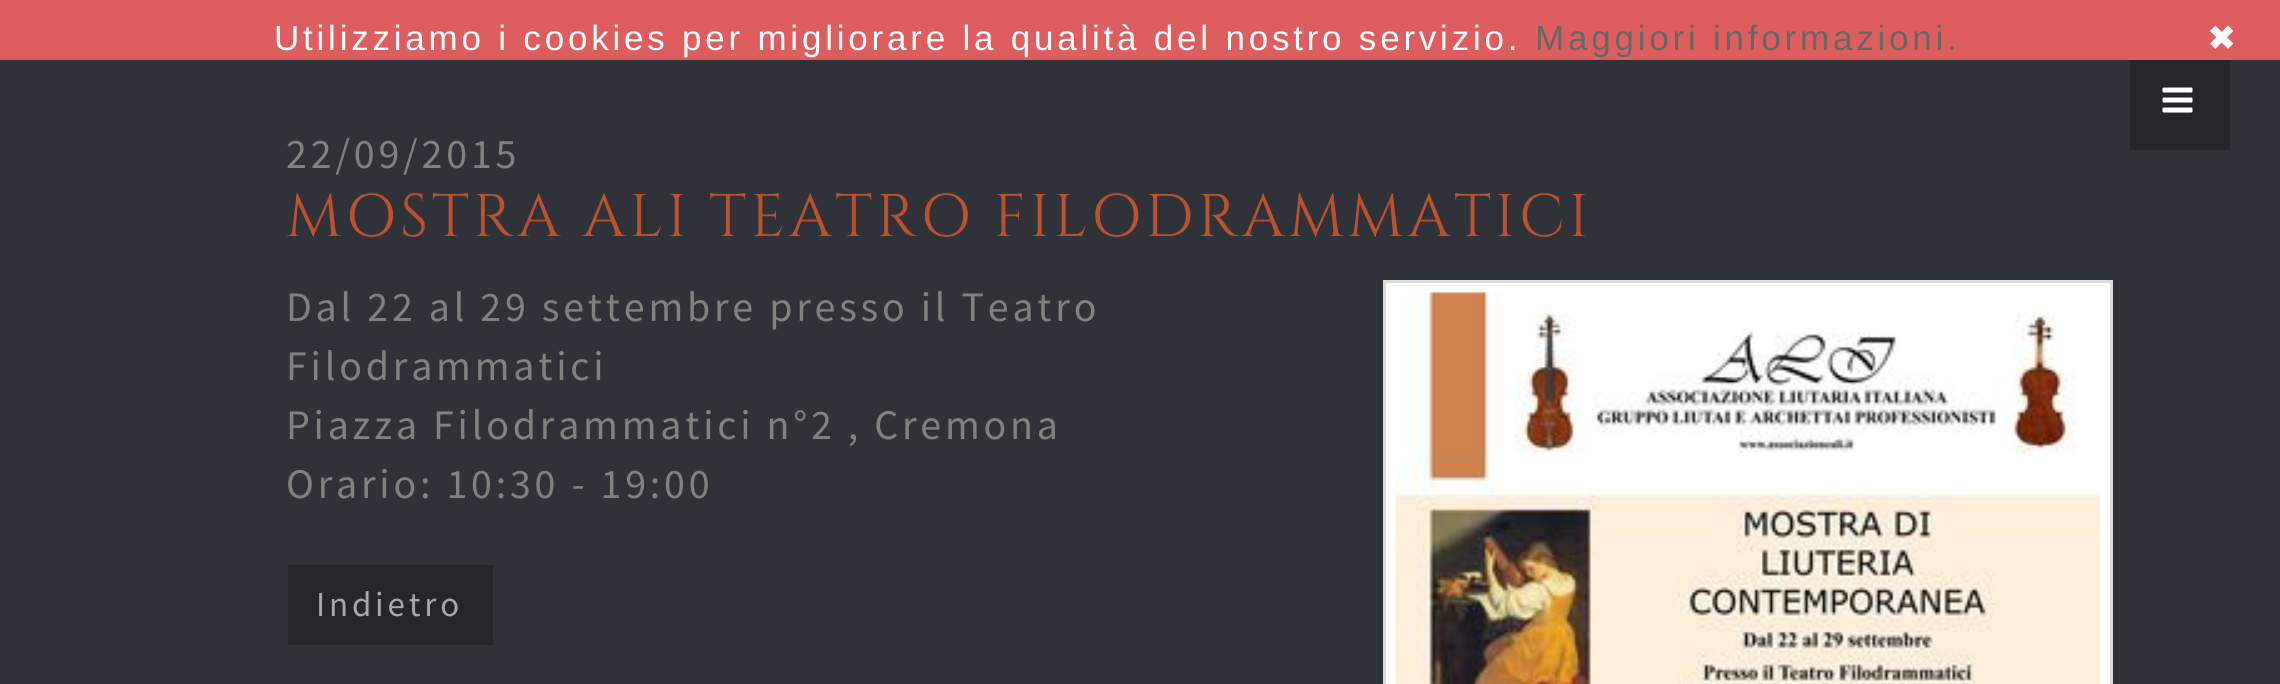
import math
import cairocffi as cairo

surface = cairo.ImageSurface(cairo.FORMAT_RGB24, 2280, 684)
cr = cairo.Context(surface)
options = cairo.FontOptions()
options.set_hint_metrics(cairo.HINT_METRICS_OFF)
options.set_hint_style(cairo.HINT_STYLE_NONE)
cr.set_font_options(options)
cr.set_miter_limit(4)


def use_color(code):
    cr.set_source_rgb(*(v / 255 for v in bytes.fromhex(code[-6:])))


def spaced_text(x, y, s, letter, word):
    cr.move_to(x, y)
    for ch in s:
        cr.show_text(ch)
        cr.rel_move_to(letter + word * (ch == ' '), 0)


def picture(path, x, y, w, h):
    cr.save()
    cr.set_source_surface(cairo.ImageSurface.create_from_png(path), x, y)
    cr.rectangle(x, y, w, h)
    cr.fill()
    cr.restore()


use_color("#2f3238")
cr.paint()
use_color("#de5e60")
cr.rectangle(0, 0, 2280, 60)
cr.fill()
cr.select_font_face("Liberation Sans")
cr.set_font_size(35)
use_color("#ffffff")
spaced_text(274, 50, "Utilizziamo i cookies per migliorare la qualità del nostro servizio.", 3.78, 0)
use_color("#666666")
spaced_text(1535, 50, "Maggiori informazioni.", 3.78, 0)
cr.select_font_face("DejaVu Sans")
use_color("#ffffff")
spaced_text(2207, 50, "✖", 3.78, 0)
use_color("#23262a")
cr.rectangle(2130, 60, 100, 90)
cr.fill()
picture("img1.png", 2162, 87, 31, 26)
cr.select_font_face("Source Sans Pro")
cr.set_font_size(42)
use_color("#818181")
spaced_text(286, 168, "22/09/2015", 3.78, 0)
cr.select_font_face("Cinzel")
cr.set_font_size(60)
use_color("#bc512e")
spaced_text(286, 236, "MOSTRA ALI TEATRO FILODRAMMATICI", 3.78, 0)
cr.select_font_face("Source Sans Pro")
cr.set_font_size(42)
use_color("#818181")
spaced_text(286, 321, "Dal 22 al 29 settembre presso il Teatro", 3.78, 0)
spaced_text(286, 380, "Filodrammatici", 3.78, 0)
spaced_text(286, 439, "Piazza Filodrammatici n°2 , Cremona", 3.78, 0)
spaced_text(286, 498, "Orario: 10:30 - 19:00", 3.78, 0)
use_color("#ffffff")
cr.rectangle(1384.5, 281.5, 727, 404)
cr.fill_preserve()
use_color("#dddddd")
cr.set_line_width(3)
cr.stroke()
picture("img2.png", 1394, 291, 706, 393)
use_color("#23262a")
cr.rectangle(288, 565, 205, 80)
cr.fill()
cr.set_font_size(35)
use_color("#a8a8a8")
spaced_text(316, 616, "Indietro", 3.78, 0)
surface.write_to_png("result.png")
